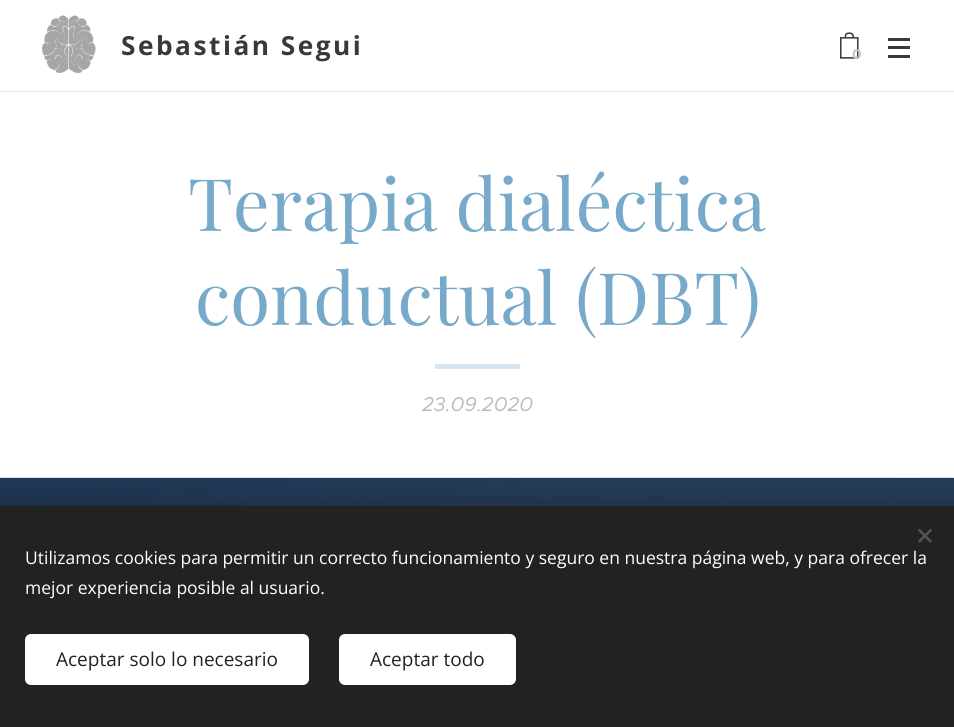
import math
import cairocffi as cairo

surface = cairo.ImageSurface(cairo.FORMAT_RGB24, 954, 727)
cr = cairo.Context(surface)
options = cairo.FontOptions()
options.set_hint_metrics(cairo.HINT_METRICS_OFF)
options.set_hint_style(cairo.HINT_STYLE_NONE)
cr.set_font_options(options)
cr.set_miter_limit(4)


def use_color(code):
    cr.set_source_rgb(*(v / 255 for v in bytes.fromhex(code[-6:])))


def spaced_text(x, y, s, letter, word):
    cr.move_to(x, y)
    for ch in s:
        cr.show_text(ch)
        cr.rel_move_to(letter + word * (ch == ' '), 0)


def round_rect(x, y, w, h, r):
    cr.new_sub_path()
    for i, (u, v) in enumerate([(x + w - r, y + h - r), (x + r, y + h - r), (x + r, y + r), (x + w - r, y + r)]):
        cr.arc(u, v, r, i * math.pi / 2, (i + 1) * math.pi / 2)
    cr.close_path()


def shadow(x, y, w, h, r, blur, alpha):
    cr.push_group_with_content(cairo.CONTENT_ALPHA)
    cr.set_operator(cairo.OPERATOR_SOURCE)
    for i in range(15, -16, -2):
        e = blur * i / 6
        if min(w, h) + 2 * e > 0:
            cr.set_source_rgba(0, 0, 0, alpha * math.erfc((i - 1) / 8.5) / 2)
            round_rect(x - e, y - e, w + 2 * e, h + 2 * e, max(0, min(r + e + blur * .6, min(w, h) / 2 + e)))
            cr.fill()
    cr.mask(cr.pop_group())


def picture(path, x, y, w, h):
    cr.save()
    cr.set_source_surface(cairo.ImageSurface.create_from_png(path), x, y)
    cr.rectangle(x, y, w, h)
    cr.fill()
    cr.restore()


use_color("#ffffff")
cr.paint()
picture("img1.png", 42, 15, 54, 58)
cr.select_font_face("Open Sans", cairo.FONT_SLANT_NORMAL, cairo.FONT_WEIGHT_BOLD)
cr.set_font_size(26.25)
use_color("#393939")
spaced_text(121, 55, "Sebastián Segui", 2.5, 0)
picture("img2.png", 840, 32, 19, 27)
cr.select_font_face("Montserrat", cairo.FONT_SLANT_NORMAL, cairo.FONT_WEIGHT_BOLD)
cr.set_font_size(14)
use_color("#c6c6c6")
cr.move_to(852, 59)
cr.show_text("0")
use_color("#393939")
cr.rectangle(888, 46, 22, 3)
cr.fill()
cr.rectangle(888, 38, 22, 3)
cr.fill()
cr.rectangle(888, 55, 22, 3)
cr.fill()
use_color("#e8e8e8")
cr.rectangle(0, 91, 954, 1)
cr.fill()
cr.select_font_face("Playfair Display")
cr.set_font_size(72.5)
use_color("#77a9ca")
cr.move_to(188, 231)
cr.show_text("Terapia dialéctica")
cr.move_to(195, 325)
cr.show_text("conductual (DBT)")
use_color("#d6e5ef")
cr.rectangle(435, 364, 85, 5)
cr.fill()
cr.select_font_face("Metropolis", cairo.FONT_SLANT_ITALIC)
cr.set_font_size(20)
use_color("#bababa")
cr.move_to(422, 411)
cr.show_text("23.09.2020")
picture("img3.png", 0, 477, 954, 29)
use_color("#000000")
shadow(0, 506, 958, 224, 0, 15.5, 0.33)
use_color("#222222")
cr.rectangle(0, 506, 954, 221)
cr.fill()
use_color("#555555")
cr.new_path()
cr.move_to(918, 541)
cr.line_to(930.5, 528.5)
cr.line_to(932, 530.5)
cr.line_to(919.5, 543)
cr.close_path()
cr.fill()
cr.new_path()
cr.move_to(919.5, 528.5)
cr.line_to(932, 541)
cr.line_to(930.5, 543)
cr.line_to(918, 530.5)
cr.close_path()
cr.fill()
cr.select_font_face("Open Sans")
cr.set_font_size(17.5)
use_color("#ffffff")
cr.move_to(25, 564)
cr.show_text("Utilizamos cookies para permitir un correcto funcionamiento y seguro en nuestra página web, y para ofrecer la")
cr.move_to(25, 594)
cr.show_text("mejor experiencia posible al usuario.")
round_rect(25, 634, 284, 51, 6)
cr.fill()
cr.set_font_size(19)
use_color("#222222")
cr.move_to(56, 666)
cr.show_text("Aceptar solo lo necesario")
use_color("#ffffff")
round_rect(339, 634, 177, 51, 6)
cr.fill()
use_color("#222222")
cr.move_to(370, 666)
cr.show_text("Aceptar todo")
surface.write_to_png("result.png")
